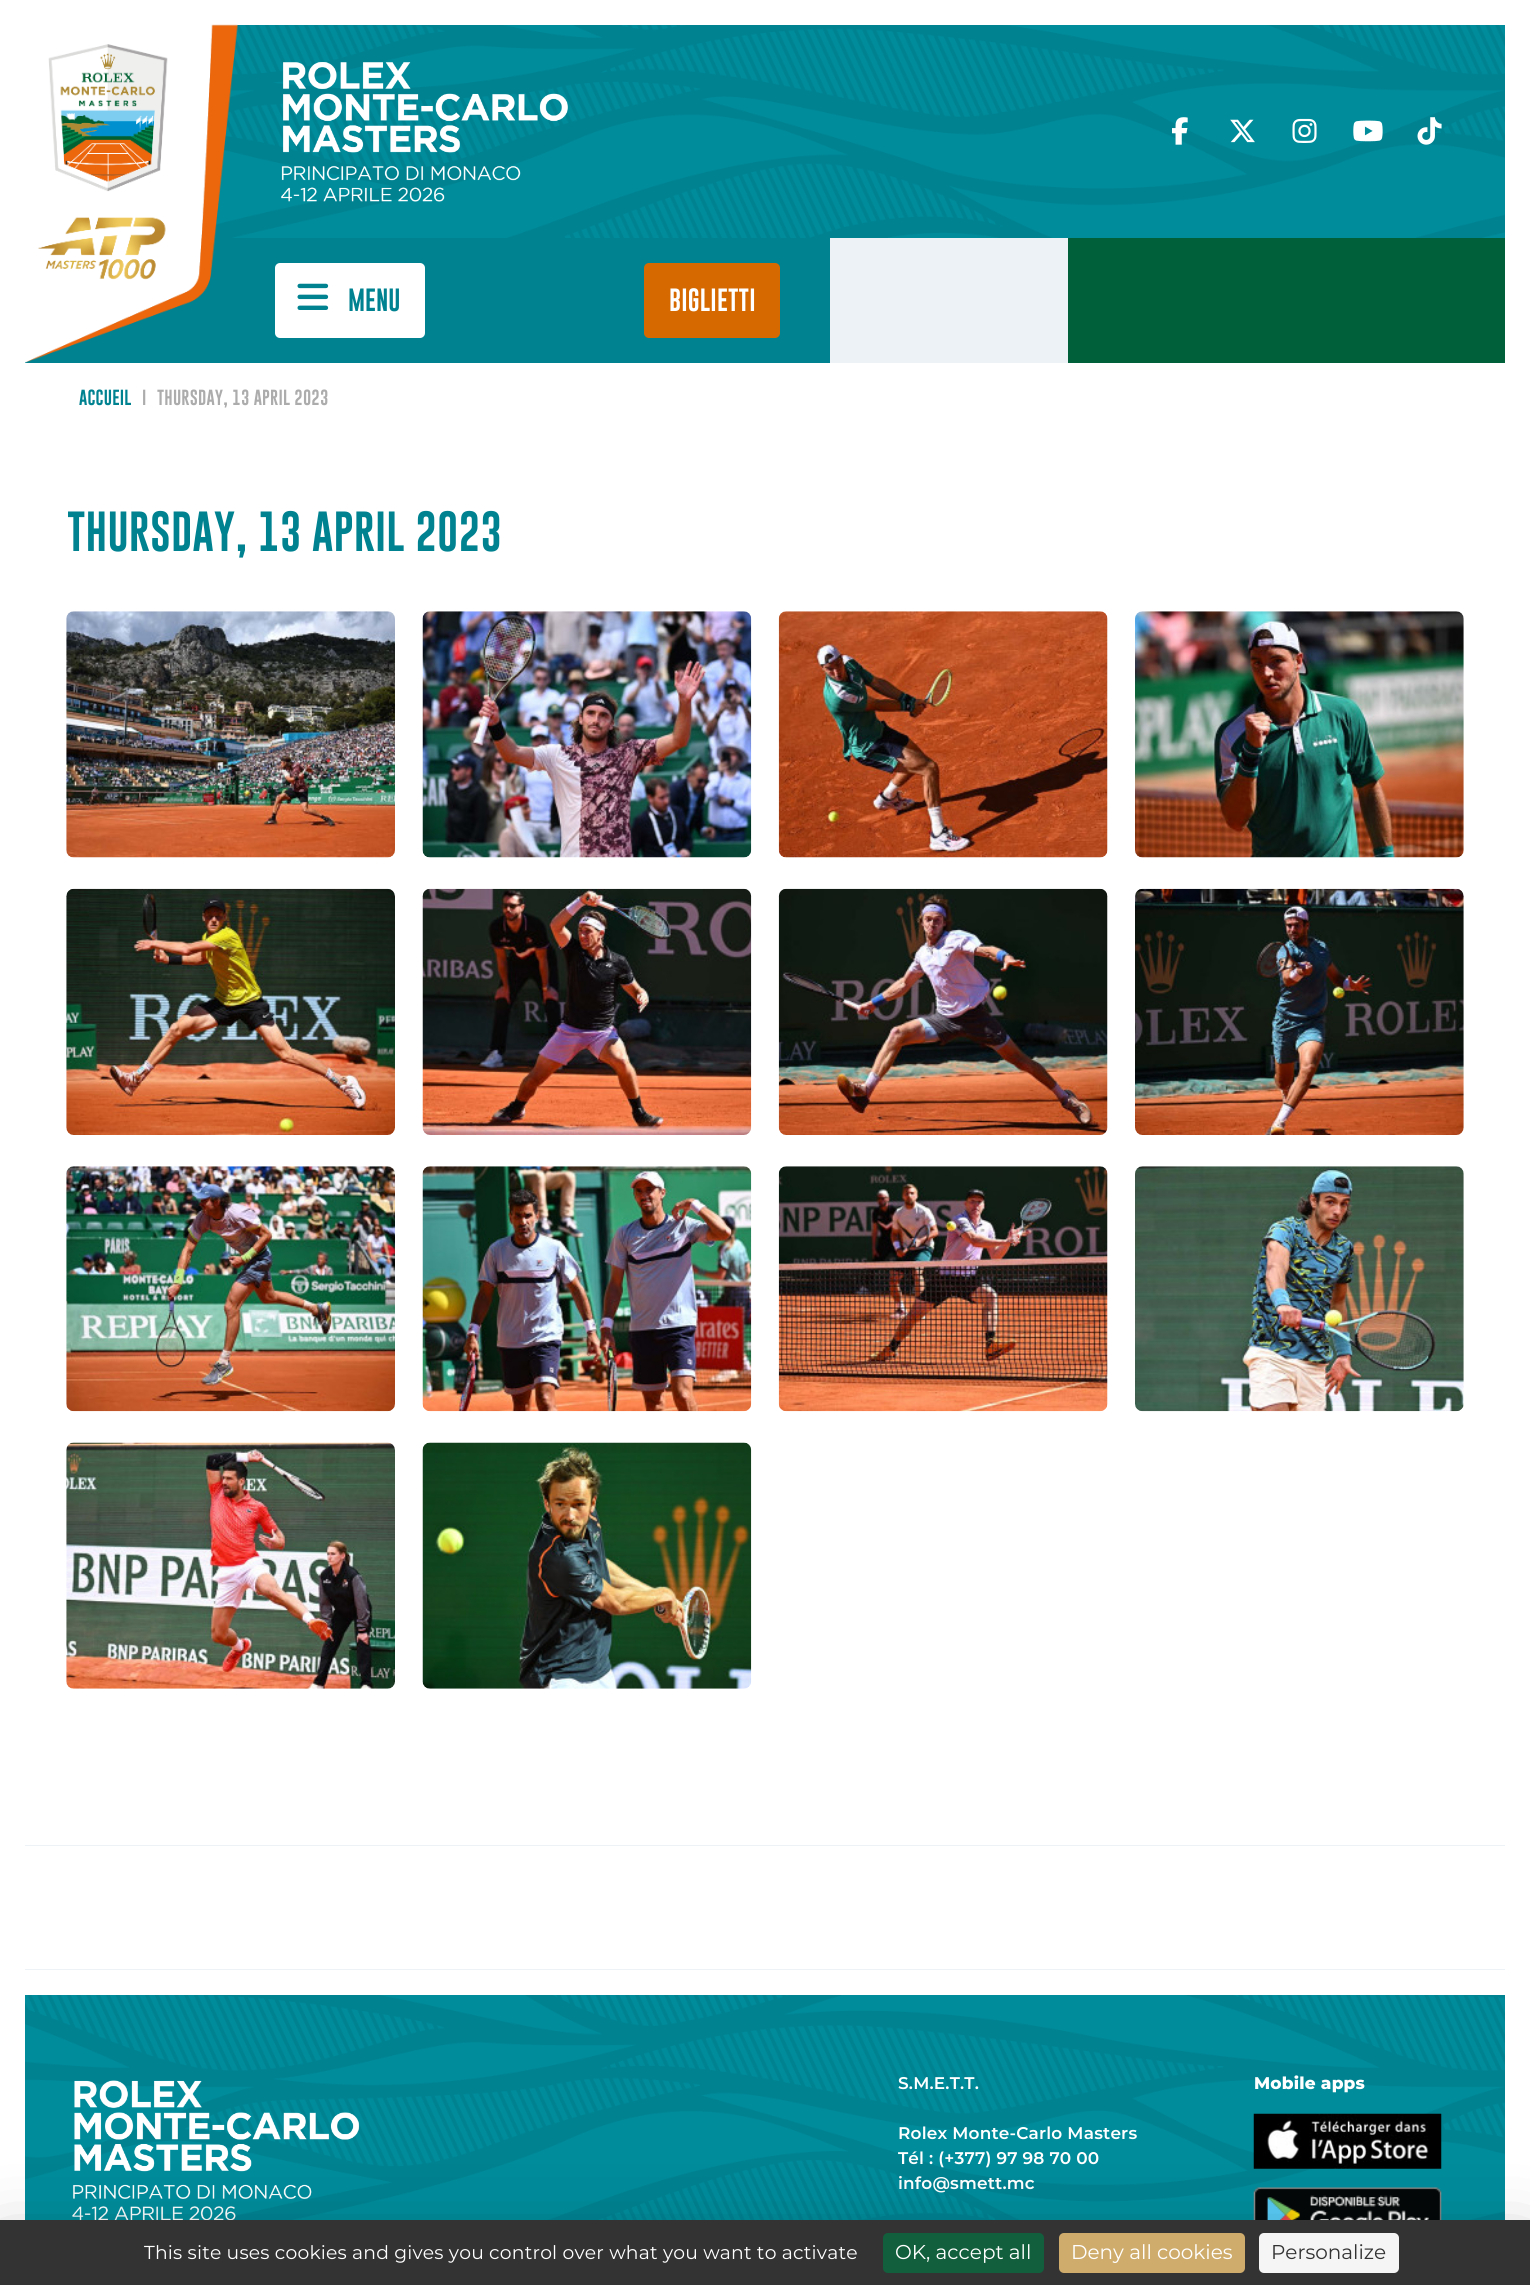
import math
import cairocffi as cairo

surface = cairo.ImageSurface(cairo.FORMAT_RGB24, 1530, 2285)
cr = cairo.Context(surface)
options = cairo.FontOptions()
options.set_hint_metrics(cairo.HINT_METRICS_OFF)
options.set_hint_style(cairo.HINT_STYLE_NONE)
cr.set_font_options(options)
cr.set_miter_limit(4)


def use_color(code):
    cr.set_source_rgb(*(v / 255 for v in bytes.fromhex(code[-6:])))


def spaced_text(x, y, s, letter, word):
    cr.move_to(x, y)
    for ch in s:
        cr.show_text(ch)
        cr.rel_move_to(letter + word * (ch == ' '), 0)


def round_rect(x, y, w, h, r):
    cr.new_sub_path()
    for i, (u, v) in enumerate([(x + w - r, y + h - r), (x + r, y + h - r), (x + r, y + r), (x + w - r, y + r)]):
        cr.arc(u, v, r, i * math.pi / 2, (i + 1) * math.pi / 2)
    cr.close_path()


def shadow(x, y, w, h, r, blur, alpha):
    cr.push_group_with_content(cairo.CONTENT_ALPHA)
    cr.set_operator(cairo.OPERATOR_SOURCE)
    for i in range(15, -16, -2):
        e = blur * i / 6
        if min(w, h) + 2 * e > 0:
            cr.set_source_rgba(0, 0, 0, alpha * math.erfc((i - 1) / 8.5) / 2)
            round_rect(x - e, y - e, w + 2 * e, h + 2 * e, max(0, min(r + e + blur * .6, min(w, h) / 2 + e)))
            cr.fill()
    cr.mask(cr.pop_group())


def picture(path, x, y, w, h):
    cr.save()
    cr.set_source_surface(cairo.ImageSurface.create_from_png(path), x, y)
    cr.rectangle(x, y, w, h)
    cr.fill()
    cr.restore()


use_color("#ffffff")
cr.paint()
use_color("#008291")
cr.rectangle(201, 25, 1304, 213)
cr.fill()
picture("img1.png", 202, 25, 1303, 213)
cr.rectangle(25, 238, 805, 125)
cr.fill()
picture("img2.png", 25, 24, 213, 339)
picture("img3.png", 281, 62, 287, 140)
picture("img4.png", 1172, 117, 16, 28)
picture("img5.png", 1230, 119, 25, 24)
picture("img6.png", 1292, 118, 25, 25)
picture("img7.png", 1353, 120, 30, 22)
picture("img8.png", 1417, 117, 25, 28)
use_color("#ffffff")
round_rect(275, 263, 150, 75, 5)
cr.fill()
picture("img9.png", 297, 283, 32, 27)
cr.select_font_face("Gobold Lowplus", cairo.FONT_SLANT_NORMAL, cairo.FONT_WEIGHT_BOLD)
cr.set_font_size(23.5)
use_color("#008291")
cr.move_to(348, 311)
cr.show_text("MENU")
use_color("#d66900")
round_rect(644, 263, 136, 75, 5)
cr.fill()
use_color("#ffffff")
spaced_text(669, 311, "BIGLIETTI", 0.2, 0)
use_color("#ecf2f5")
cr.rectangle(830, 238, 238, 125)
cr.fill()
use_color("#006039")
cr.rectangle(1068, 238, 437, 125)
cr.fill()
cr.set_font_size(16)
use_color("#008291")
spaced_text(79, 405, "ACCUEIL", 0.2, 0)
use_color("#acacac")
spaced_text(142, 405, "I", 0.2, 0)
spaced_text(157, 405, "THURSDAY, 13 APRIL 2023", 0.2, 0)
cr.set_font_size(41.25)
use_color("#008291")
spaced_text(67, 551, "THURSDAY, 13 APRIL 2023", 0.2, 0)
picture("img10.png", 66, 611, 329, 247)
picture("img11.png", 422, 611, 330, 247)
picture("img12.png", 778, 611, 330, 247)
picture("img13.png", 1135, 611, 329, 247)
picture("img14.png", 66, 888, 329, 247)
picture("img15.png", 422, 888, 330, 247)
picture("img16.png", 778, 888, 330, 247)
picture("img17.png", 1135, 888, 329, 247)
picture("img18.png", 66, 1166, 329, 246)
picture("img19.png", 422, 1166, 330, 246)
picture("img20.png", 778, 1166, 330, 246)
picture("img21.png", 1135, 1166, 329, 246)
picture("img22.png", 66, 1442, 329, 247)
picture("img23.png", 422, 1442, 330, 247)
use_color("#ecf2f5")
cr.rectangle(25, 1845, 1480, 1)
cr.fill()
cr.rectangle(25, 1969, 1480, 1)
cr.fill()
use_color("#008291")
cr.rectangle(25, 1995, 1480, 225)
cr.fill()
picture("img24.png", 25, 1995, 1480, 225)
picture("img25.png", 72, 2080, 288, 140)
cr.select_font_face("Montserrat SemiBold")
cr.set_font_size(16.9)
use_color("#ffffff")
spaced_text(898, 2089, "S.M.E.T.T.", 0.2, 0)
spaced_text(898, 2139, "Rolex Monte-Carlo Masters", 0.2, 0)
spaced_text(898, 2164, "Tél : (+377) 97 98 70 00", 0.2, 0)
spaced_text(898, 2189, "info@smett.mc", 0.2, 0)
cr.select_font_face("Montserrat ExtraBold")
spaced_text(1254, 2089, "Mobile apps", 0.2, 0)
picture("img26.png", 1253, 2113, 189, 56)
picture("img27.png", 1253, 2187, 189, 33)
use_color("#000000")
shadow(0, 2245, 1530, 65, 0, 37.5, 0.25)
use_color("#333333")
cr.rectangle(0, 2220, 1530, 65)
cr.fill()
cr.select_font_face("Montserrat")
cr.set_font_size(18.75)
use_color("#ffffff")
spaced_text(144, 2259, "This site uses cookies and gives you control over what you want to activate", 0.2, 0)
use_color("#115f3c")
round_rect(883, 2233, 161, 40, 5)
cr.fill()
cr.set_font_size(20)
use_color("#ffffff")
cr.move_to(895, 2259)
cr.show_text("OK, accept all")
use_color("#cfac6c")
round_rect(1059, 2233, 186, 40, 5)
cr.fill()
use_color("#ffffff")
cr.move_to(1071, 2259)
cr.show_text("Deny all cookies")
use_color("#f5f5f5")
round_rect(1259, 2233, 140, 40, 5)
cr.fill()
use_color("#333333")
cr.move_to(1271, 2259)
cr.show_text("Personalize")
surface.write_to_png("result.png")
